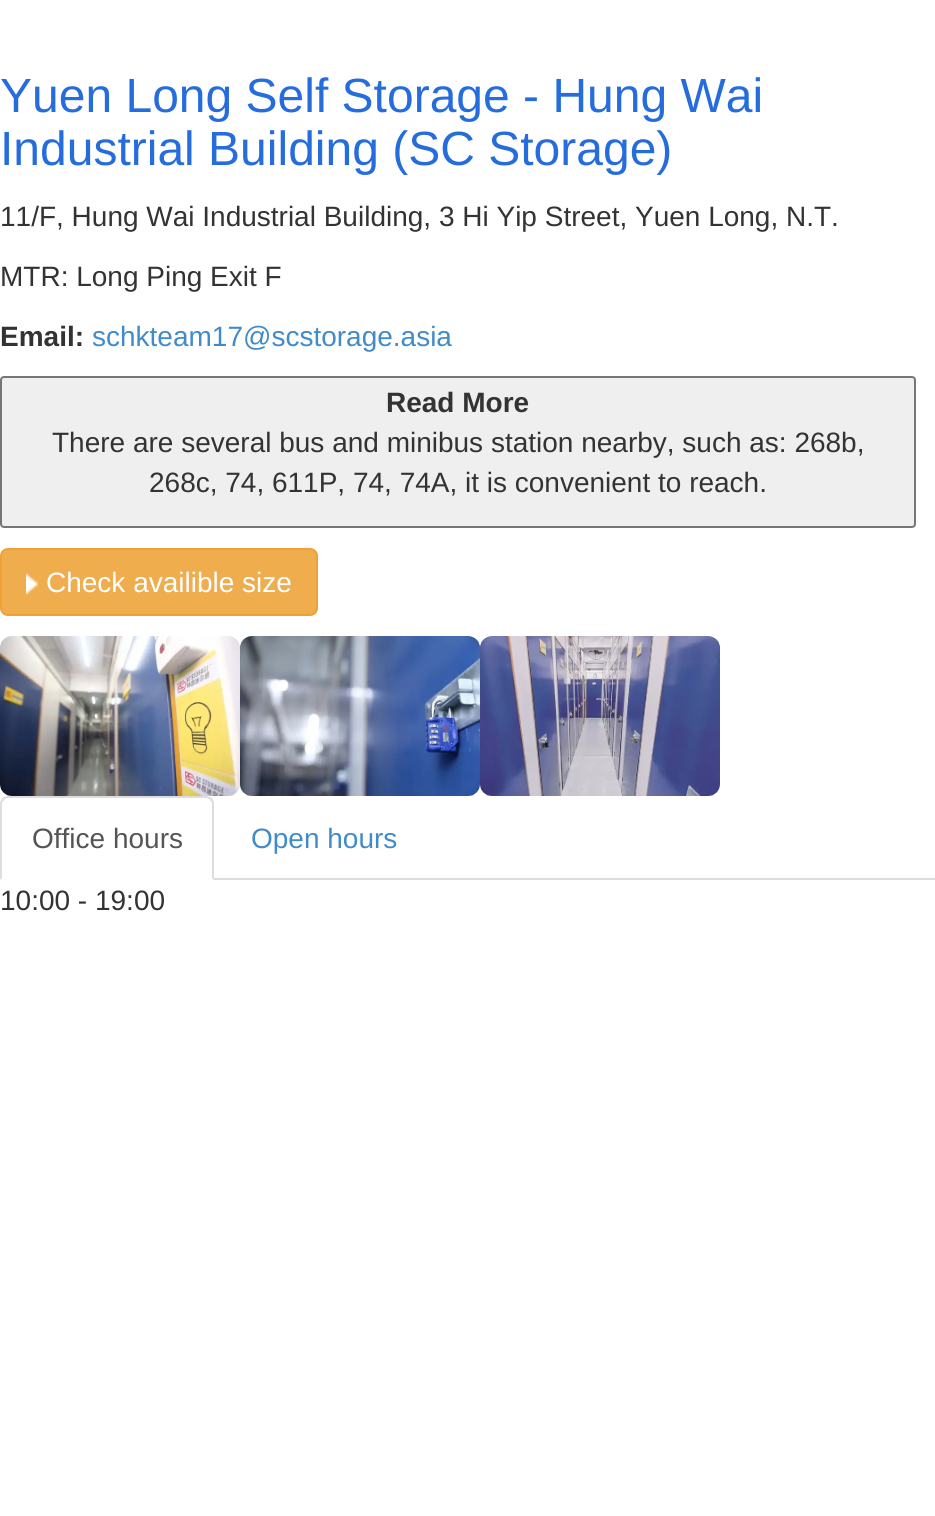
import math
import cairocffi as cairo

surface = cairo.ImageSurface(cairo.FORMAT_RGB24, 935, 1516)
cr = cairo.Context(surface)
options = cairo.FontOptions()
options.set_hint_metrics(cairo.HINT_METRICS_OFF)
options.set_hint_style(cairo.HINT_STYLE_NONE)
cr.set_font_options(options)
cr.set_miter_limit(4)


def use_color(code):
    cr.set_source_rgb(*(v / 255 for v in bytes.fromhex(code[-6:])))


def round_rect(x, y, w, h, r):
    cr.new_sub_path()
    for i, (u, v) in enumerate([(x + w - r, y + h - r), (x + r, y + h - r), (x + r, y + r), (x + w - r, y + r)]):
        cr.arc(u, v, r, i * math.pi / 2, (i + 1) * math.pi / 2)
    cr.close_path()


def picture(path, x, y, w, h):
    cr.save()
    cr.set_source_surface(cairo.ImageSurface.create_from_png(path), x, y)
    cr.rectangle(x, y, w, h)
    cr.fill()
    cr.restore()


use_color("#ffffff")
cr.paint()
cr.select_font_face("Liberation Sans")
cr.set_font_size(48)
use_color("#256ddc")
cr.move_to(0, 112)
cr.show_text("Yuen Long Self Storage - Hung Wai")
cr.move_to(0, 165)
cr.show_text("Industrial Building (SC Storage)")
cr.set_font_size(28)
use_color("#333333")
cr.move_to(0, 226)
cr.show_text("11/F, Hung Wai Industrial Building, 3 Hi Yip Street, Yuen Long, N.T.")
cr.move_to(0, 286)
cr.show_text("MTR: Long Ping Exit F")
cr.select_font_face("Liberation Sans", cairo.FONT_SLANT_NORMAL, cairo.FONT_WEIGHT_BOLD)
cr.move_to(0, 346)
cr.show_text("Email:")
cr.select_font_face("Liberation Sans")
use_color("#428bca")
cr.move_to(92, 346)
cr.show_text("schkteam17@scstorage.asia")
use_color("#efefef")
round_rect(1, 377, 914, 150, 3)
cr.fill_preserve()
use_color("#767676")
cr.stroke()
cr.select_font_face("Liberation Sans", cairo.FONT_SLANT_NORMAL, cairo.FONT_WEIGHT_BOLD)
use_color("#333333")
cr.move_to(386, 412)
cr.show_text("Read More")
cr.select_font_face("Liberation Sans")
cr.move_to(52, 452)
cr.show_text("There are several bus and minibus station nearby, such as: 268b,")
cr.move_to(149, 492)
cr.show_text("268c, 74, 611P, 74, 74A, it is convenient to reach.")
use_color("#f0ad4e")
round_rect(1, 549, 316, 66, 7)
cr.fill_preserve()
use_color("#eea236")
cr.stroke()
picture("img1.png", 26, 574, 12, 20)
use_color("#ffffff")
cr.move_to(46, 592)
cr.show_text("Check availible size")
picture("img2.png", 0, 636, 240, 160)
picture("img3.png", 240, 636, 240, 160)
picture("img4.png", 480, 636, 240, 160)
use_color("#dddddd")
cr.rectangle(214, 878, 721, 2)
cr.fill()
cr.new_path()
cr.move_to(8, 796)
cr.curve_to(6, 796, 4, 797, 2, 798)
cr.line_to(4, 800)
cr.curve_to(5, 799, 6, 798, 8, 798)
cr.line_to(206, 798)
cr.curve_to(208, 798, 209, 799, 210, 800)
cr.line_to(212, 798)
cr.curve_to(210, 797, 208, 796, 206, 796)
cr.close_path()
cr.fill()
cr.new_path()
cr.move_to(214, 880)
cr.line_to(214, 804)
cr.curve_to(214, 802, 213, 800, 212, 798)
cr.line_to(210, 800)
cr.line_to(212, 803)
cr.line_to(212, 878)
cr.close_path()
cr.fill()
cr.new_path()
cr.move_to(0, 880)
cr.line_to(2, 878)
cr.line_to(2, 803)
cr.line_to(4, 800)
cr.line_to(2, 798)
cr.curve_to(1, 800, 0, 802, 0, 804)
cr.close_path()
cr.fill()
use_color("#555555")
cr.move_to(32, 848)
cr.show_text("Office hours")
use_color("#428bca")
cr.move_to(251, 848)
cr.show_text("Open hours")
use_color("#333333")
cr.move_to(0, 910)
cr.show_text("10:00 - 19:00")
surface.write_to_png("result.png")
